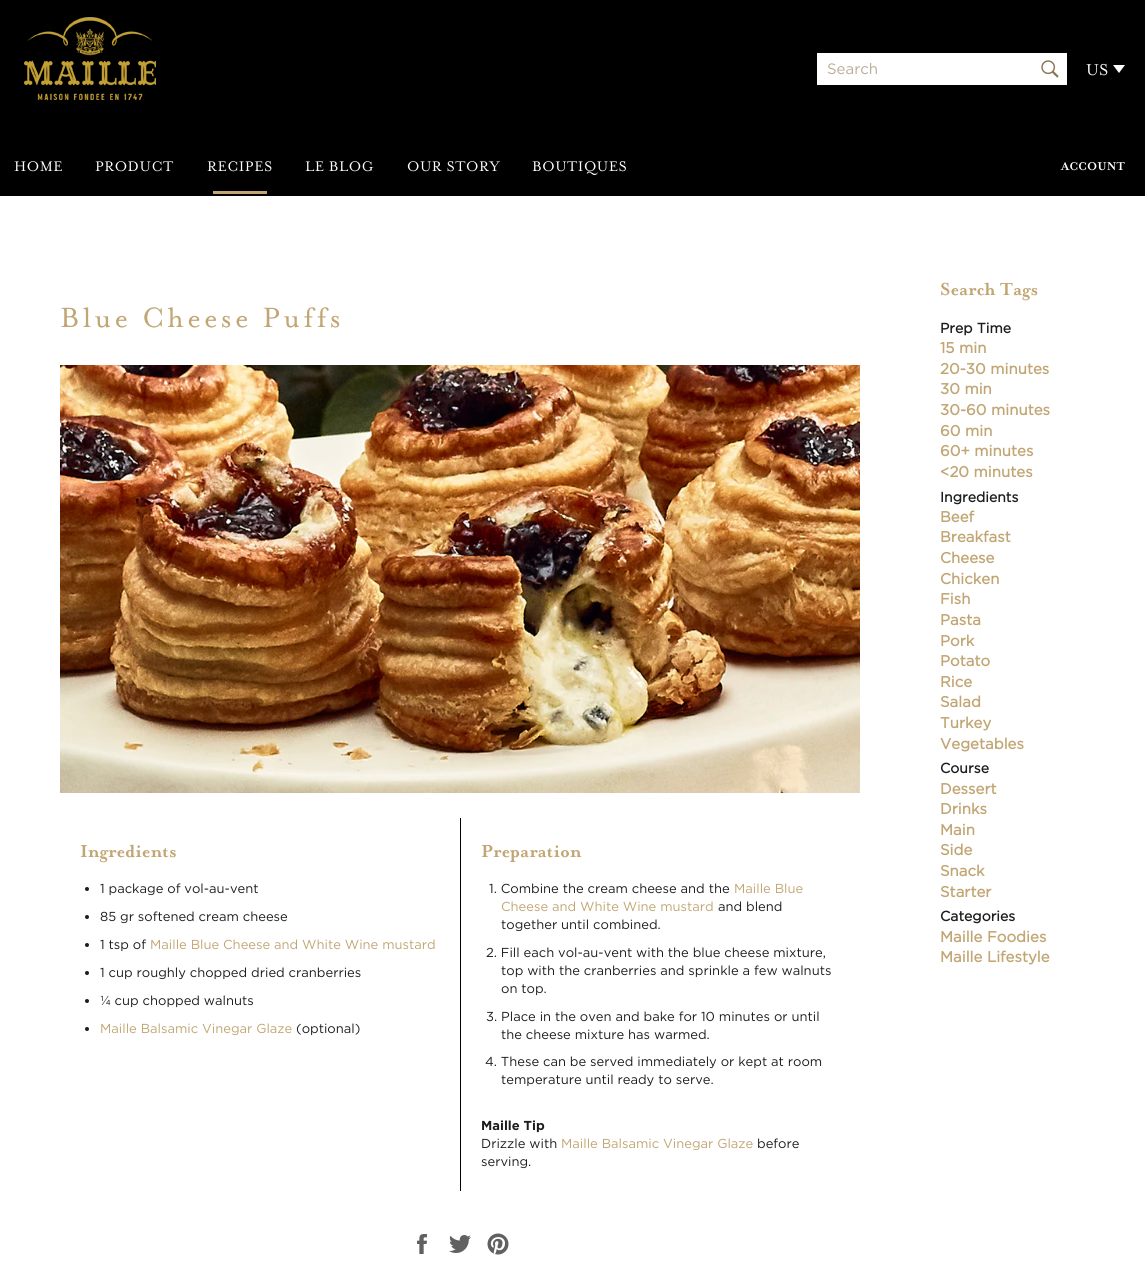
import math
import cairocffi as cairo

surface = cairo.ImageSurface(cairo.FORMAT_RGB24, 1145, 1274)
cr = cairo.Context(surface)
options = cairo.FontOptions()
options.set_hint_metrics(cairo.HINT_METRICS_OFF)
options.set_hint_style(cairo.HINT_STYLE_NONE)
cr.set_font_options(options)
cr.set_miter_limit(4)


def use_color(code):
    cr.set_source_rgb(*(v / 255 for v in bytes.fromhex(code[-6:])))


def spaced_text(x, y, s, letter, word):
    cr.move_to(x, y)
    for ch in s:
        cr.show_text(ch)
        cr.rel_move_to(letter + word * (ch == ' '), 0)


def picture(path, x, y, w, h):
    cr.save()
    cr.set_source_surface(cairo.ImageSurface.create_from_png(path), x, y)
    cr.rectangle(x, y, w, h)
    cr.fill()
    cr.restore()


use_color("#ffffff")
cr.paint()
use_color("#000000")
cr.rectangle(0, 0, 1145, 196)
cr.fill()
picture("img1.png", 24, 17, 132, 83)
use_color("#ffffff")
cr.rectangle(817, 53, 250, 32)
cr.fill()
cr.select_font_face("Gotham")
cr.set_font_size(15)
use_color("#b9ac97")
cr.move_to(827, 74)
cr.show_text("Search")
picture("img2.png", 1041, 60, 18, 18)
cr.select_font_face("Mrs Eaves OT")
cr.set_font_size(18)
use_color("#ffffff")
cr.move_to(1086, 75)
cr.show_text("US")
cr.new_path()
cr.move_to(1113, 65)
cr.line_to(1125, 65)
cr.line_to(1119, 73)
cr.close_path()
cr.fill()
cr.set_font_size(16)
spaced_text(14, 171, "HOME", 0.5, 0)
spaced_text(95, 171, "PRODUCT", 0.5, 0)
spaced_text(207, 171, "RECIPES", 0.5, 0)
use_color("#c1a573")
cr.rectangle(213, 191, 54, 3)
cr.fill()
use_color("#ffffff")
spaced_text(305, 171, "LE BLOG", 0.5, 0)
spaced_text(407, 171, "OUR STORY", 0.5, 0)
spaced_text(532, 171, "BOUTIQUES", 0.5, 0)
cr.select_font_face("Mrs Eaves OT", cairo.FONT_SLANT_NORMAL, cairo.FONT_WEIGHT_BOLD)
cr.set_font_size(13)
cr.move_to(1061, 170)
cr.show_text("ACCOUNT")
cr.select_font_face("Mrs Eaves OT")
cr.set_font_size(32)
use_color("#c1a573")
spaced_text(60, 327, "Blue Cheese Puffs", 3.25, 0)
picture("img3.png", 60, 365, 800, 428)
cr.select_font_face("Mrs Eaves OT", cairo.FONT_SLANT_NORMAL, cairo.FONT_WEIGHT_BOLD)
cr.set_font_size(20)
cr.move_to(80, 857)
cr.show_text("Ingredients")
use_color("#1c1d1d")
cr.new_path()
cr.arc(87, 889, 2, 0, 2 * math.pi)
cr.fill()
cr.select_font_face("Gotham")
cr.set_font_size(13)
cr.move_to(100, 893)
cr.show_text("1 package of vol-au-vent")
cr.new_path()
cr.arc(87, 917, 2, 0, 2 * math.pi)
cr.fill()
cr.move_to(100, 921)
cr.show_text("85 gr softened cream cheese")
cr.new_path()
cr.arc(87, 945, 2, 0, 2 * math.pi)
cr.fill()
cr.move_to(100, 949)
cr.show_text("1 tsp of")
use_color("#c1a573")
cr.move_to(150, 949)
cr.show_text("Maille Blue Cheese and White Wine mustard")
use_color("#1c1d1d")
cr.new_path()
cr.arc(87, 973, 2, 0, 2 * math.pi)
cr.fill()
cr.move_to(100, 977)
cr.show_text("1 cup roughly chopped dried cranberries")
cr.new_path()
cr.arc(87, 1001, 2, 0, 2 * math.pi)
cr.fill()
cr.move_to(100, 1005)
cr.show_text("¼ cup chopped walnuts")
cr.new_path()
cr.arc(87, 1029, 2, 0, 2 * math.pi)
cr.fill()
use_color("#c1a573")
cr.move_to(100, 1033)
cr.show_text("Maille Balsamic Vinegar Glaze")
use_color("#1c1d1d")
cr.move_to(296, 1033)
cr.show_text("(optional)")
use_color("#000000")
cr.rectangle(460, 818, 1, 373)
cr.fill()
cr.select_font_face("Mrs Eaves OT", cairo.FONT_SLANT_NORMAL, cairo.FONT_WEIGHT_BOLD)
cr.set_font_size(20)
use_color("#c1a573")
cr.move_to(481, 857)
cr.show_text("Preparation")
cr.select_font_face("Gotham")
cr.set_font_size(13)
use_color("#1c1d1d")
cr.move_to(489, 893)
cr.show_text("1. Combine the cream cheese and the")
use_color("#c1a573")
cr.move_to(734, 893)
cr.show_text("Maille Blue")
cr.move_to(501, 911)
cr.show_text("Cheese and White Wine mustard")
use_color("#1c1d1d")
cr.move_to(718, 911)
cr.show_text("and blend")
cr.move_to(501, 929)
cr.show_text("together until combined.")
cr.move_to(486, 957)
cr.show_text("2. Fill each vol-au-vent with the blue cheese mixture,")
cr.move_to(501, 975)
cr.show_text("top with the cranberries and sprinkle a few walnuts")
cr.move_to(501, 993)
cr.show_text("on top.")
cr.move_to(486, 1021)
cr.show_text("3. Place in the oven and bake for 10 minutes or until")
cr.move_to(501, 1039)
cr.show_text("the cheese mixture has warmed.")
cr.move_to(485, 1066)
cr.show_text("4. These can be served immediately or kept at room")
cr.move_to(501, 1084)
cr.show_text("temperature until ready to serve.")
cr.select_font_face("Gotham", cairo.FONT_SLANT_NORMAL, cairo.FONT_WEIGHT_BOLD)
cr.move_to(481, 1130)
cr.show_text("Maille Tip")
cr.select_font_face("Gotham")
cr.move_to(481, 1148)
cr.show_text("Drizzle with")
use_color("#c1a573")
cr.move_to(561, 1148)
cr.show_text("Maille Balsamic Vinegar Glaze")
use_color("#1c1d1d")
cr.move_to(757, 1148)
cr.show_text("before")
cr.move_to(481, 1166)
cr.show_text("serving.")
picture("img4.png", 417, 1234, 10, 20)
picture("img5.png", 449, 1235, 22, 18)
picture("img6.png", 487, 1233, 22, 22)
cr.select_font_face("Mrs Eaves OT", cairo.FONT_SLANT_NORMAL, cairo.FONT_WEIGHT_BOLD)
cr.set_font_size(20)
use_color("#c1a573")
cr.move_to(940, 295)
cr.show_text("Search Tags")
cr.select_font_face("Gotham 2", cairo.FONT_SLANT_NORMAL, cairo.FONT_WEIGHT_BOLD)
cr.set_font_size(14)
use_color("#1c1d1d")
cr.move_to(940, 333)
cr.show_text("Prep Time")
cr.set_font_size(15)
use_color("#c1a573")
cr.move_to(940, 353)
cr.show_text("15 min")
cr.move_to(940, 374)
cr.show_text("20-30 minutes")
cr.move_to(940, 394)
cr.show_text("30 min")
cr.move_to(940, 415)
cr.show_text("30-60 minutes")
cr.move_to(940, 436)
cr.show_text("60 min")
cr.move_to(940, 456)
cr.show_text("60+ minutes")
cr.move_to(940, 477)
cr.show_text("<20 minutes")
cr.set_font_size(14)
use_color("#1c1d1d")
cr.move_to(940, 502)
cr.show_text("Ingredients")
cr.set_font_size(15)
use_color("#c1a573")
cr.move_to(940, 522)
cr.show_text("Beef")
cr.move_to(940, 542)
cr.show_text("Breakfast")
cr.move_to(940, 563)
cr.show_text("Cheese")
cr.move_to(940, 584)
cr.show_text("Chicken")
cr.move_to(940, 604)
cr.show_text("Fish")
cr.move_to(940, 625)
cr.show_text("Pasta")
cr.move_to(940, 646)
cr.show_text("Pork")
cr.move_to(940, 666)
cr.show_text("Potato")
cr.move_to(940, 687)
cr.show_text("Rice")
cr.move_to(940, 707)
cr.show_text("Salad")
cr.move_to(940, 728)
cr.show_text("Turkey")
cr.move_to(940, 749)
cr.show_text("Vegetables")
cr.set_font_size(14)
use_color("#1c1d1d")
cr.move_to(940, 773)
cr.show_text("Course")
cr.set_font_size(15)
use_color("#c1a573")
cr.move_to(940, 794)
cr.show_text("Dessert")
cr.move_to(940, 814)
cr.show_text("Drinks")
cr.move_to(940, 835)
cr.show_text("Main")
cr.move_to(940, 855)
cr.show_text("Side")
cr.move_to(940, 876)
cr.show_text("Snack")
cr.move_to(940, 897)
cr.show_text("Starter")
cr.set_font_size(14)
use_color("#1c1d1d")
cr.move_to(940, 921)
cr.show_text("Categories")
cr.set_font_size(15)
use_color("#c1a573")
cr.move_to(940, 942)
cr.show_text("Maille Foodies")
cr.move_to(940, 962)
cr.show_text("Maille Lifestyle")
surface.write_to_png("result.png")
